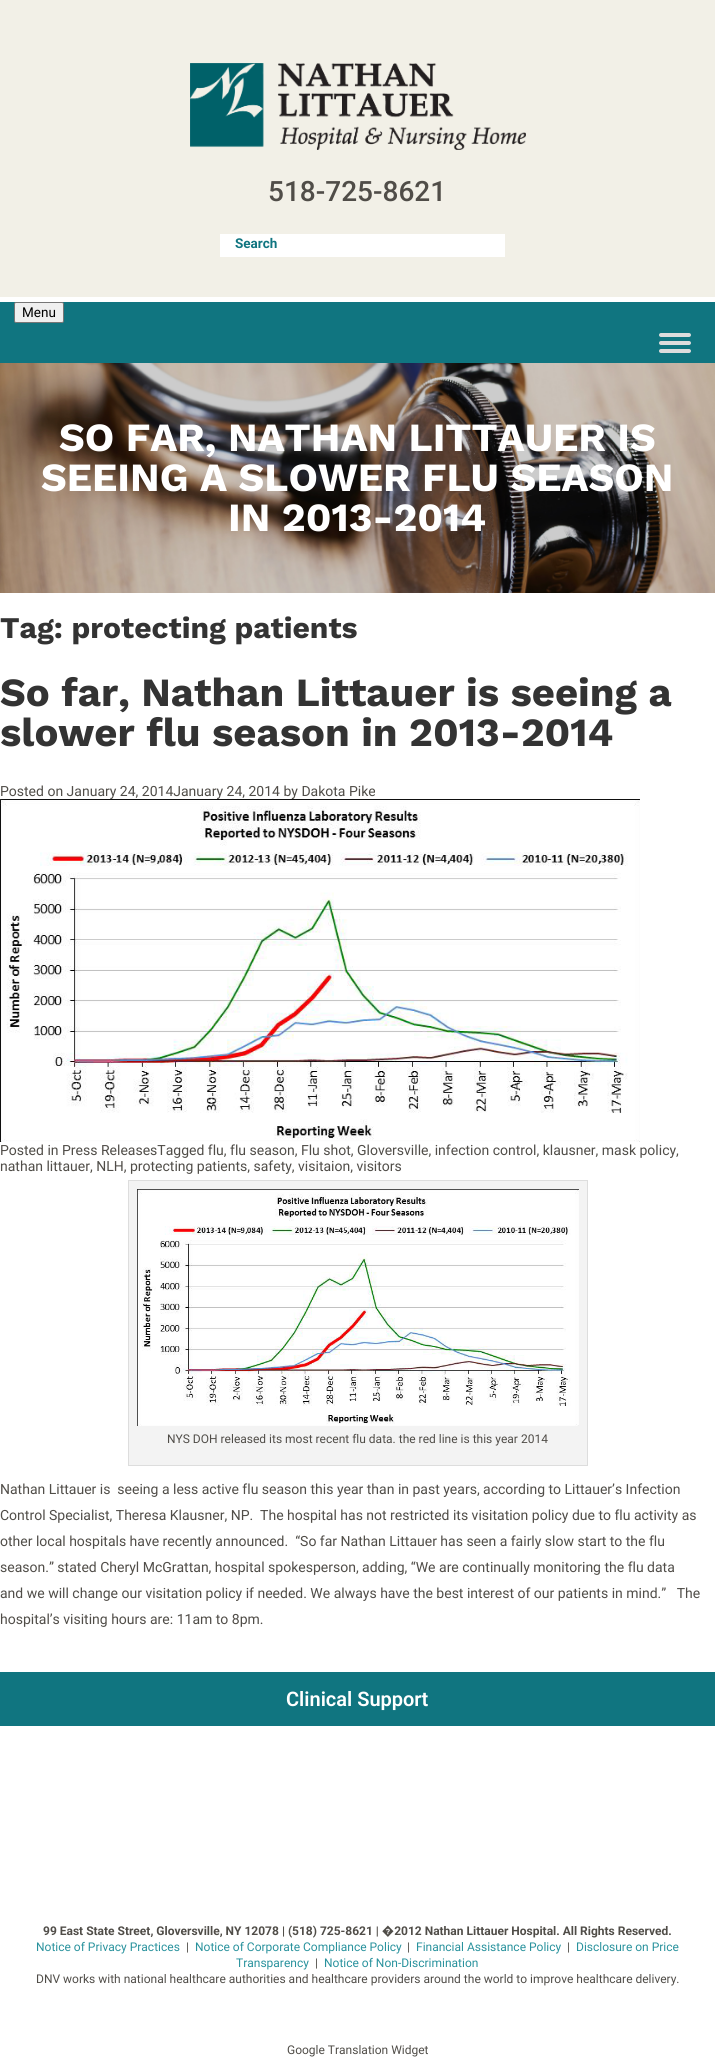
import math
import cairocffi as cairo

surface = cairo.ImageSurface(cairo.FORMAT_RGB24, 715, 2063)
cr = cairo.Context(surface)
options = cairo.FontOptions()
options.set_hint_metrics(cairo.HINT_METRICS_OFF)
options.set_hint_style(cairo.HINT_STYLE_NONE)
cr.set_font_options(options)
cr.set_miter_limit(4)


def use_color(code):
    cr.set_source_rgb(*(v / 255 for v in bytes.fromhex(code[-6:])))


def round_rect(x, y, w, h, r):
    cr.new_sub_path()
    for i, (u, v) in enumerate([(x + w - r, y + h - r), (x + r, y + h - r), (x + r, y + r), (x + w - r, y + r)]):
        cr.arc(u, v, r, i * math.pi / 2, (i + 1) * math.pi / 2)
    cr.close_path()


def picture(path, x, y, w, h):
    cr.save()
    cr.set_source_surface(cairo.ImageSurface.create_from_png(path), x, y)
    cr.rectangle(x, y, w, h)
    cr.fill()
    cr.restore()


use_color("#ffffff")
cr.paint()
use_color("#f2f0e7")
cr.rectangle(0, 0, 715, 297)
cr.fill()
picture("img1.png", 190, 63, 336, 87)
cr.select_font_face("Roboto Medium")
cr.set_font_size(28)
use_color("#504d48")
cr.move_to(268, 201)
cr.show_text("518-725-8621")
use_color("#ffffff")
cr.rectangle(220, 234, 285, 23)
cr.fill()
cr.select_font_face("Roboto", cairo.FONT_SLANT_NORMAL, cairo.FONT_WEIGHT_BOLD)
cr.set_font_size(13.5)
use_color("#107580")
cr.move_to(235, 248)
cr.show_text("Search")
cr.rectangle(0, 302, 715, 61)
cr.fill()
use_color("#efefef")
round_rect(14.5, 302.5, 49, 20, 1.5)
cr.fill_preserve()
use_color("#767676")
cr.set_line_width(1)
cr.stroke()
cr.select_font_face("Roboto")
use_color("#000000")
cr.move_to(22, 317)
cr.show_text("Menu")
use_color("#dddddd")
round_rect(659, 333, 32, 4, 2)
cr.fill()
round_rect(659, 341, 32, 4, 2)
cr.fill()
round_rect(659, 349, 32, 4, 2)
cr.fill()
picture("img2.png", 0, 363, 715, 230)
cr.select_font_face("Work Sans", cairo.FONT_SLANT_NORMAL, cairo.FONT_WEIGHT_BOLD)
cr.set_font_size(40)
use_color("#ffffff")
cr.move_to(59, 451)
cr.show_text("SO FAR, NATHAN LITTAUER IS")
cr.move_to(41, 491)
cr.show_text("SEEING A SLOWER FLU SEASON")
cr.move_to(228, 531)
cr.show_text("IN 2013-2014")
cr.set_font_size(30)
use_color("#333333")
cr.move_to(0, 638)
cr.show_text("Tag: protecting patients")
cr.set_font_size(40)
cr.move_to(0, 706)
cr.show_text("So far, Nathan Littauer is seeing a")
cr.move_to(0, 746)
cr.show_text("slower flu season in 2013-2014")
cr.select_font_face("Roboto")
cr.set_font_size(14)
use_color("#504d48")
cr.move_to(0, 796)
cr.show_text("Posted on January 24, 2014January 24, 2014 by Dakota Pike")
picture("img3.png", 0, 799, 640, 343)
cr.move_to(0, 1155)
cr.show_text("Posted in Press ReleasesTagged flu, flu season, Flu shot, Gloversville, infection control, klausner, mask policy,")
cr.move_to(0, 1171)
cr.show_text("nathan littauer, NLH, protecting patients, safety, visitaion, visitors")
use_color("#f3f3f3")
cr.rectangle(128.5, 1180.5, 459, 285)
cr.fill_preserve()
use_color("#dddddd")
cr.stroke()
picture("img4.png", 137, 1189, 442, 237)
cr.set_font_size(12)
use_color("#504d48")
cr.move_to(167, 1443)
cr.show_text("NYS DOH released its most recent flu data. the red line is this year 2014")
cr.set_font_size(14)
cr.move_to(0, 1494)
cr.show_text("Nathan Littauer is  seeing a less active flu season this year than in past years, according to Littauer’s Infection")
cr.move_to(0, 1520)
cr.show_text("Control Specialist, Theresa Klausner, NP.  The hospital has not restricted its visitation policy due to flu activity as")
cr.move_to(0, 1546)
cr.show_text("other local hospitals have recently announced.  “So far Nathan Littauer has seen a fairly slow start to the flu")
cr.move_to(0, 1572)
cr.show_text("season.” stated Cheryl McGrattan, hospital spokesperson, adding, “We are continually monitoring the flu data")
cr.move_to(0, 1598)
cr.show_text("and we will change our visitation policy if needed. We always have the best interest of our patients in mind.”   The")
cr.move_to(0, 1624)
cr.show_text("hospital’s visiting hours are: 11am to 8pm.")
use_color("#107580")
cr.rectangle(0, 1672, 715, 54)
cr.fill()
cr.select_font_face("Roboto SemiBold")
cr.set_font_size(20)
use_color("#ffffff")
cr.move_to(286, 1706)
cr.show_text("Clinical Support")
cr.select_font_face("Roboto", cairo.FONT_SLANT_NORMAL, cairo.FONT_WEIGHT_BOLD)
cr.set_font_size(12)
use_color("#504d48")
cr.move_to(43, 1935)
cr.show_text("99 East State Street, Gloversville, NY 12078 | (518) 725-8621 | �2012 Nathan Littauer Hospital. All Rights Reserved.")
cr.select_font_face("Roboto")
use_color("#29929d")
cr.move_to(36, 1951)
cr.show_text("Notice of Privacy Practices")
use_color("#504d48")
cr.move_to(186, 1951)
cr.show_text("|")
use_color("#29929d")
cr.move_to(195, 1951)
cr.show_text("Notice of Corporate Compliance Policy")
use_color("#504d48")
cr.move_to(407, 1951)
cr.show_text("|")
use_color("#29929d")
cr.move_to(416, 1951)
cr.show_text("Financial Assistance Policy")
use_color("#504d48")
cr.move_to(567, 1951)
cr.show_text("|")
use_color("#29929d")
cr.move_to(576, 1951)
cr.show_text("Disclosure on Price")
cr.move_to(236, 1967)
cr.show_text("Transparency")
use_color("#504d48")
cr.move_to(315, 1967)
cr.show_text("|")
use_color("#29929d")
cr.move_to(324, 1967)
cr.show_text("Notice of Non-Discrimination")
use_color("#504d48")
cr.move_to(36, 1983)
cr.show_text("DNV works with national healthcare authorities and healthcare providers around the world to improve healthcare delivery.")
cr.move_to(287, 2054)
cr.show_text("Google Translation Widget")
surface.write_to_png("result.png")
